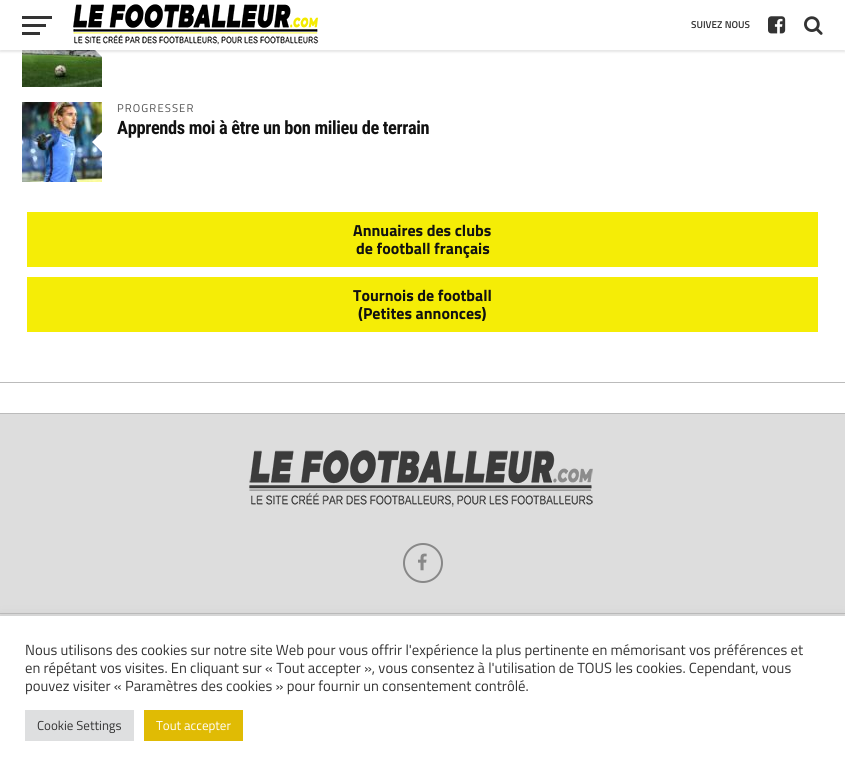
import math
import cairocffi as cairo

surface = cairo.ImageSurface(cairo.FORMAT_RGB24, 845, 771)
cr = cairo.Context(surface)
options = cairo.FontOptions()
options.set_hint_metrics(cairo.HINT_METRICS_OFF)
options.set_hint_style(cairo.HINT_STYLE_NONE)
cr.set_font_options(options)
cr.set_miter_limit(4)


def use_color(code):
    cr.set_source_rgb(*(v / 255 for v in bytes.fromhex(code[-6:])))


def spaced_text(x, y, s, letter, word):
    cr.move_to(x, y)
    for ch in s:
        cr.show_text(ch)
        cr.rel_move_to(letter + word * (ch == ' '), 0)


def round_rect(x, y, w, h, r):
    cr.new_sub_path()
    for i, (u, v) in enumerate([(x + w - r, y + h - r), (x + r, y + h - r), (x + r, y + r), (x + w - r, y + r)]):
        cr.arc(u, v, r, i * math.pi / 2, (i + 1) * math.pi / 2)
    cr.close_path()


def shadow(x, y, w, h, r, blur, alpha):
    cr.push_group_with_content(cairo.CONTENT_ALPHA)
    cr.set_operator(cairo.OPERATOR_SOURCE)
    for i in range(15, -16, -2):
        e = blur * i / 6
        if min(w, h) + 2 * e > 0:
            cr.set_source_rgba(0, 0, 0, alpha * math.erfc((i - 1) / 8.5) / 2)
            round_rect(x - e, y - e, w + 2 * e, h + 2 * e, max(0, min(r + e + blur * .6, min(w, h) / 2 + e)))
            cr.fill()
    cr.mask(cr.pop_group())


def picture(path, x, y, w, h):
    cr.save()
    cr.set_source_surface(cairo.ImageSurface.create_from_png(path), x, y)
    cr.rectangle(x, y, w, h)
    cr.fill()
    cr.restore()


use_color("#dddddd")
cr.paint()
use_color("#ffffff")
cr.rectangle(0, 50, 845, 363)
cr.fill()
picture("img4.png", 22, 50, 80, 37)
cr.new_path()
cr.move_to(102, 37)
cr.line_to(102, 57)
cr.line_to(92, 47)
cr.close_path()
cr.fill()
use_color("#000000")
shadow(0, 2, 845, 50, 0, 1, 0.1)
use_color("#ffffff")
cr.rectangle(0, 0, 845, 50)
cr.fill()
use_color("#333333")
cr.rectangle(22, 16, 30, 3)
cr.fill()
cr.rectangle(22, 24, 24, 3)
cr.fill()
cr.rectangle(22, 32, 18, 3)
cr.fill()
picture("img1.png", 73, 4, 246, 41)
cr.select_font_face("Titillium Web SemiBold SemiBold")
cr.set_font_size(10)
cr.move_to(691, 28)
cr.show_text("SUIVEZ NOUS")
picture("img2.png", 768, 16, 18, 18)
picture("img3.png", 804, 16, 19, 19)
use_color("#bbbbbb")
cr.rectangle(0, 413, 845, 1)
cr.fill()
cr.rectangle(0, 382, 845, 1)
cr.fill()
picture("img5.png", 22, 102, 80, 80)
use_color("#ffffff")
cr.new_path()
cr.move_to(102, 132)
cr.line_to(102, 152)
cr.line_to(92, 142)
cr.close_path()
cr.fill()
cr.select_font_face("Titillium Web")
cr.set_font_size(11.25)
use_color("#555555")
spaced_text(117, 112, "PROGRESSER", 1.1, 0)
cr.select_font_face("Roboto Condensed", cairo.FONT_SLANT_NORMAL, cairo.FONT_WEIGHT_BOLD)
cr.set_font_size(18.4)
use_color("#111111")
spaced_text(117, 134, "Apprends moi à être un bon milieu de terrain", -0.35, 0)
use_color("#f5ed06")
cr.rectangle(27, 212, 791, 55)
cr.fill()
cr.select_font_face("Titillium Web", cairo.FONT_SLANT_NORMAL, cairo.FONT_WEIGHT_BOLD)
cr.set_font_size(16)
use_color("#111111")
cr.move_to(353, 236)
cr.show_text("Annuaires des clubs")
cr.move_to(356, 254)
cr.show_text("de football français")
use_color("#f5ed06")
cr.rectangle(27, 277, 791, 55)
cr.fill()
use_color("#111111")
cr.move_to(353, 301)
cr.show_text("Tournois de football")
cr.move_to(358, 319)
cr.show_text("(Petites annonces)")
picture("img6.png", 249, 450, 344, 57)
cr.arc(423, 563, 19, 0, 2 * math.pi)
use_color("#888888")
cr.stroke()
picture("img7.png", 418, 553, 9, 18)
use_color("#bbbbbb")
cr.rectangle(0, 613, 845, 1)
cr.fill()
use_color("#acabab")
shadow(0, 615, 845, 155, 0, 5, 0.3)
use_color("#ffffff")
cr.rectangle(0, 616, 845, 155)
cr.fill()
cr.select_font_face("Titillium Web")
cr.set_font_size(14.67)
use_color("#333333")
cr.move_to(25, 655)
cr.show_text("Nous utilisons des cookies sur notre site Web pour vous offrir l'expérience la plus pertinente en mémorisant vos préférences et")
cr.move_to(25, 673)
cr.show_text("en répétant vos visites. En cliquant sur « Tout accepter », vous consentez à l'utilisation de TOUS les cookies. Cependant, vous")
cr.move_to(25, 691)
cr.show_text("pouvez visiter « Paramètres des cookies » pour fournir un consentement contrôlé.")
use_color("#dedfe0")
cr.rectangle(25, 710, 109, 31)
cr.fill()
cr.set_font_size(13)
use_color("#333333")
cr.move_to(37, 730)
cr.show_text("Cookie Settings")
use_color("#e0bb04")
cr.rectangle(144, 710, 99, 31)
cr.fill()
use_color("#ffffff")
cr.move_to(156, 730)
cr.show_text("Tout accepter")
surface.write_to_png("result.png")
